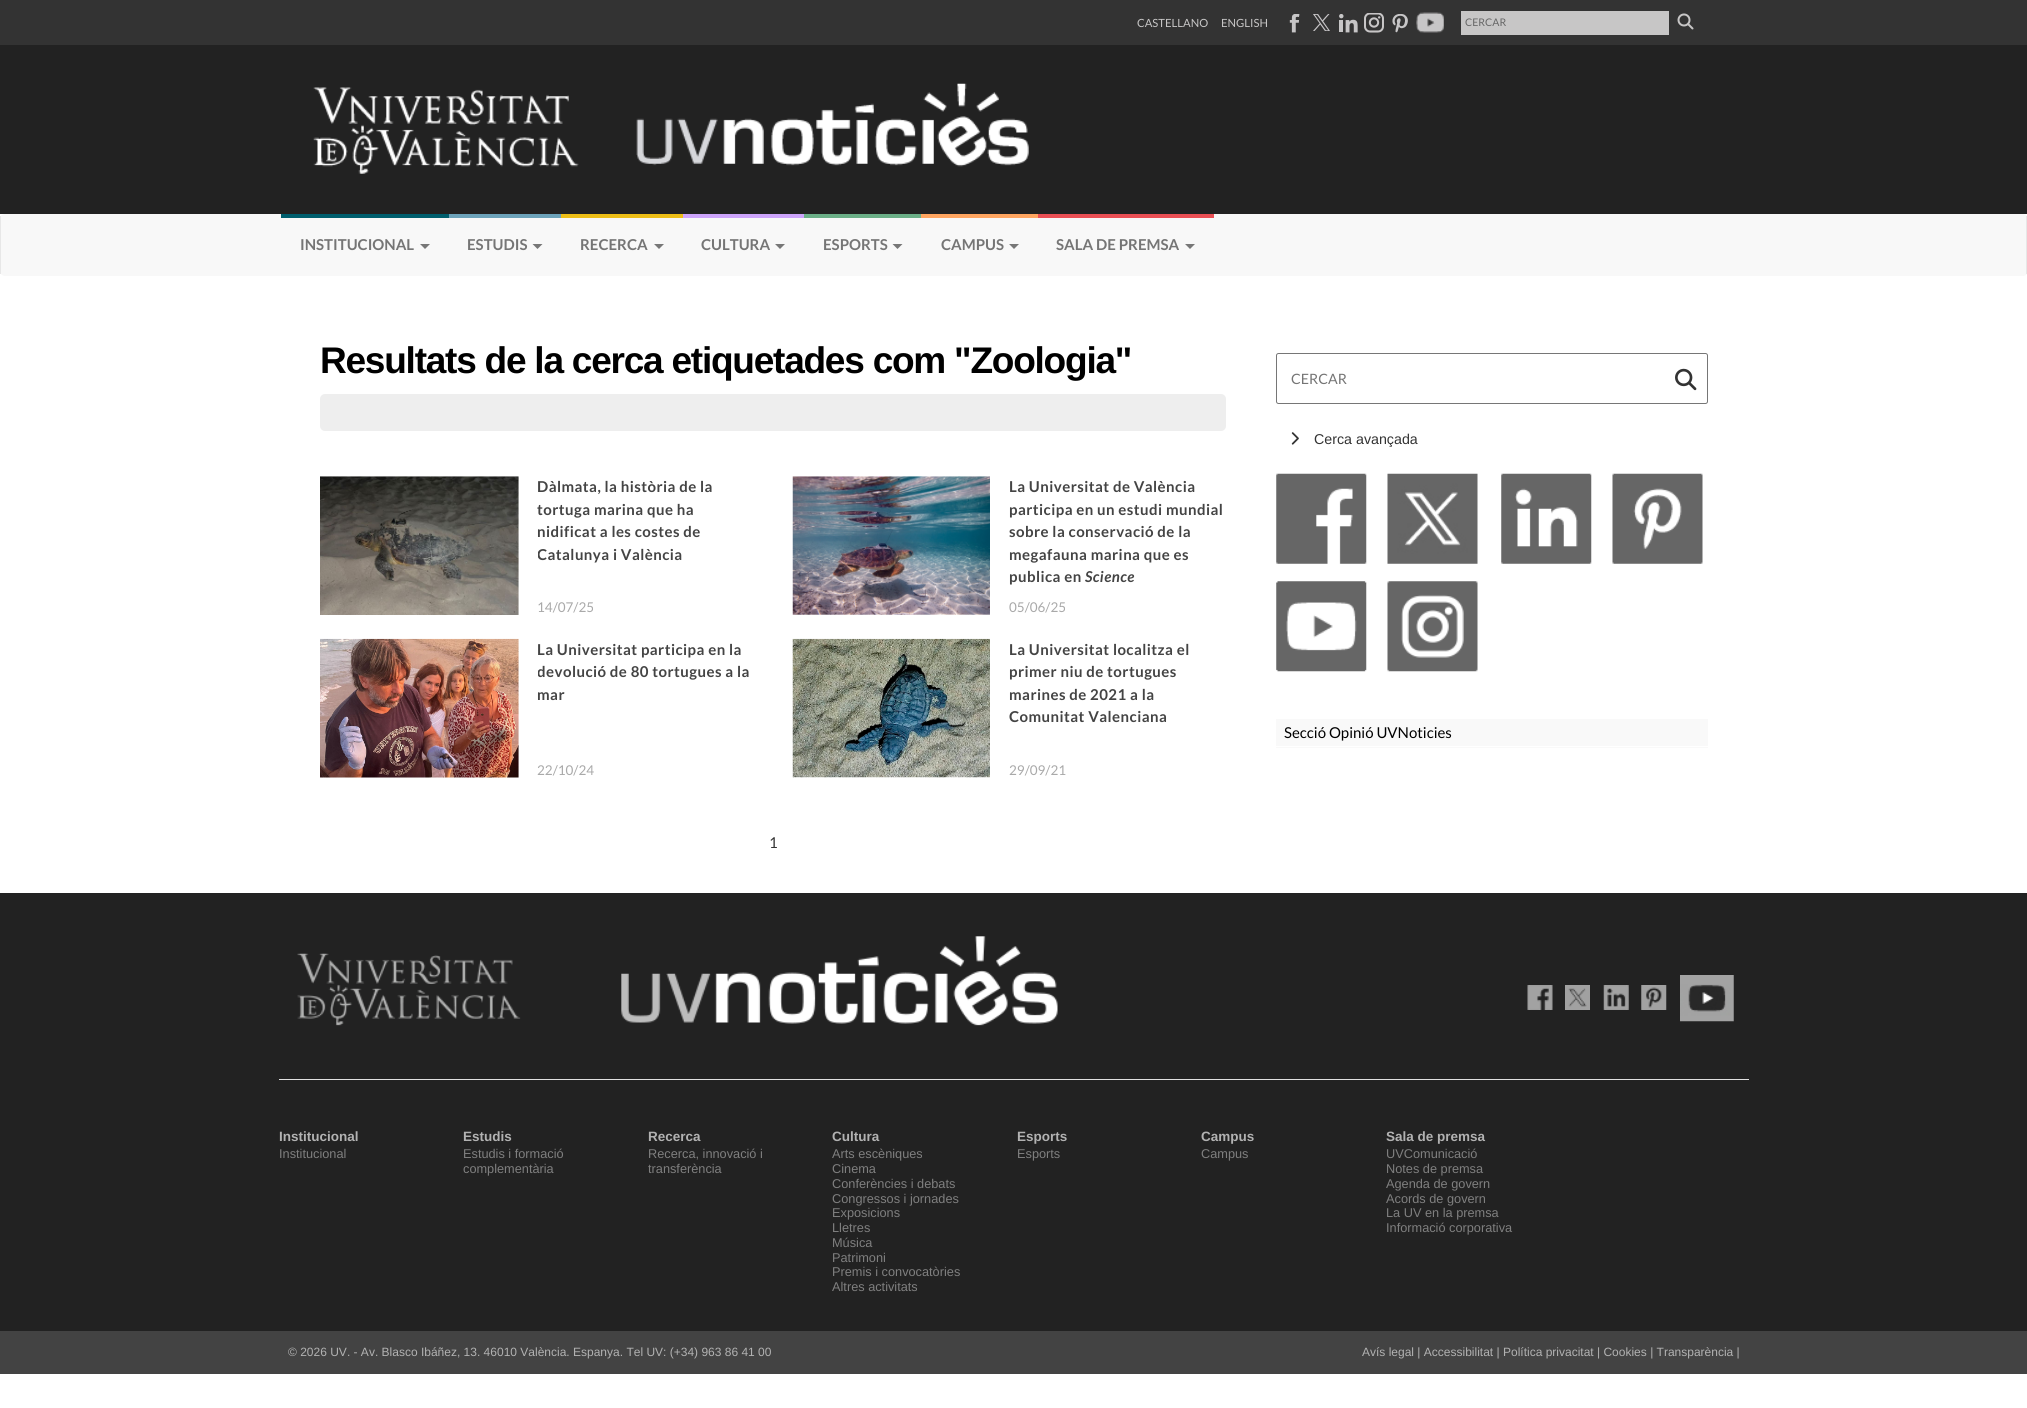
import math
import cairocffi as cairo

surface = cairo.ImageSurface(cairo.FORMAT_RGB24, 2027, 1408)
cr = cairo.Context(surface)
options = cairo.FontOptions()
options.set_hint_metrics(cairo.HINT_METRICS_OFF)
options.set_hint_style(cairo.HINT_STYLE_NONE)
cr.set_font_options(options)
cr.set_miter_limit(4)


def use_color(code):
    cr.set_source_rgb(*(v / 255 for v in bytes.fromhex(code[-6:])))


def spaced_text(x, y, s, letter, word):
    cr.move_to(x, y)
    for ch in s:
        cr.show_text(ch)
        cr.rel_move_to(letter + word * (ch == ' '), 0)


def round_rect(x, y, w, h, r):
    cr.new_sub_path()
    for i, (u, v) in enumerate([(x + w - r, y + h - r), (x + r, y + h - r), (x + r, y + r), (x + w - r, y + r)]):
        cr.arc(u, v, r, i * math.pi / 2, (i + 1) * math.pi / 2)
    cr.close_path()


def picture(path, x, y, w, h):
    cr.save()
    cr.set_source_surface(cairo.ImageSurface.create_from_png(path), x, y)
    cr.rectangle(x, y, w, h)
    cr.fill()
    cr.restore()


use_color("#ffffff")
cr.paint()
use_color("#333333")
cr.rectangle(0, 0, 2027, 45)
cr.fill()
cr.select_font_face("Lato")
cr.set_font_size(11.25)
use_color("#c7c6c6")
cr.move_to(1137, 27)
cr.show_text("CASTELLANO")
cr.move_to(1221, 27)
cr.show_text("ENGLISH")
picture("img1.png", 1289, 14, 11, 19)
picture("img2.png", 1313, 14, 17, 17)
picture("img3.png", 1339, 14, 19, 19)
picture("img4.png", 1364, 13, 20, 20)
picture("img5.png", 1392, 14, 16, 19)
picture("img6.png", 1416, 12, 28, 21)
cr.rectangle(1461, 11, 208, 24)
cr.fill()
cr.set_font_size(10.5)
use_color("#666666")
cr.move_to(1465, 26)
cr.show_text("CERCAR")
picture("img7.png", 1677, 13, 17, 17)
use_color("#222222")
cr.rectangle(0, 45, 2027, 169)
cr.fill()
picture("img8.png", 313, 83, 716, 91)
use_color("#f8f8f8")
round_rect(0, 214, 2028, 62, 5)
cr.fill()
use_color("#e7e7e7")
cr.rectangle(2026, 216, 1, 58)
cr.fill()
cr.rectangle(0, 216, 1, 58)
cr.fill()
use_color("#005e6d")
cr.rectangle(281, 214, 168, 4)
cr.fill()
cr.select_font_face("Lato", cairo.FONT_SLANT_NORMAL, cairo.FONT_WEIGHT_BOLD)
cr.set_font_size(15)
use_color("#757575")
cr.move_to(300, 250)
cr.show_text("INSTITUCIONAL")
use_color("#777777")
cr.new_path()
cr.move_to(420, 244)
cr.line_to(430, 244)
cr.line_to(425, 249)
cr.close_path()
cr.fill()
use_color("#6ca2b9")
cr.rectangle(449, 214, 112, 4)
cr.fill()
use_color("#757575")
cr.move_to(467, 250)
cr.show_text("ESTUDIS")
use_color("#777777")
cr.new_path()
cr.move_to(532.5, 244)
cr.line_to(542.5, 244)
cr.line_to(537.5, 249)
cr.close_path()
cr.fill()
use_color("#edbe17")
cr.rectangle(561, 214, 122, 4)
cr.fill()
use_color("#757575")
cr.move_to(580, 250)
cr.show_text("RECERCA")
use_color("#777777")
cr.new_path()
cr.move_to(654, 244)
cr.line_to(664, 244)
cr.line_to(659, 249)
cr.close_path()
cr.fill()
use_color("#cda4fb")
cr.rectangle(683, 214, 121, 4)
cr.fill()
use_color("#757575")
cr.move_to(701, 250)
cr.show_text("CULTURA")
use_color("#777777")
cr.new_path()
cr.move_to(775, 244)
cr.line_to(785, 244)
cr.line_to(780, 249)
cr.close_path()
cr.fill()
use_color("#6baf87")
cr.rectangle(804, 214, 117, 4)
cr.fill()
use_color("#757575")
cr.move_to(823, 250)
cr.show_text("ESPORTS")
use_color("#777777")
cr.new_path()
cr.move_to(892.5, 244)
cr.line_to(902.5, 244)
cr.line_to(897.5, 249)
cr.close_path()
cr.fill()
use_color("#ffa560")
cr.rectangle(921, 214, 117, 4)
cr.fill()
use_color("#757575")
cr.move_to(941, 250)
cr.show_text("CAMPUS")
use_color("#777777")
cr.new_path()
cr.move_to(1009, 244)
cr.line_to(1019, 244)
cr.line_to(1014, 249)
cr.close_path()
cr.fill()
use_color("#ea4f54")
cr.rectangle(1038, 214, 176, 4)
cr.fill()
use_color("#757575")
cr.move_to(1056, 250)
cr.show_text("SALA DE PREMSA")
use_color("#777777")
cr.new_path()
cr.move_to(1185, 244)
cr.line_to(1195, 244)
cr.line_to(1190, 249)
cr.close_path()
cr.fill()
cr.select_font_face("Liberation Sans", cairo.FONT_SLANT_NORMAL, cairo.FONT_WEIGHT_BOLD)
cr.set_font_size(37.05)
use_color("#000000")
spaced_text(320, 373, "Resultats de la cerca etiquetades com \"Zoologia\"", -1.25, 0)
use_color("#eeeeee")
round_rect(320, 394, 906, 37, 5)
cr.fill()
picture("img9.png", 320, 476, 199, 139)
cr.select_font_face("Lato", cairo.FONT_SLANT_NORMAL, cairo.FONT_WEIGHT_BOLD)
cr.set_font_size(15)
use_color("#444444")
spaced_text(537, 492, "Dàlmata, la història de la", 0.45, 0)
spaced_text(537, 515, "tortuga marina que ha", 0.45, 0)
spaced_text(537, 537, "nidificat a les costes de", 0.45, 0)
cr.save()
cr.rectangle(538, 476, 217, 110)
cr.clip()
spaced_text(537, 560, "Catalunya i València", 0.45, 0)
cr.restore()
cr.select_font_face("Lato")
cr.set_font_size(13.5)
use_color("#a9a9a9")
cr.move_to(537, 612)
cr.show_text("14/07/25")
picture("img10.png", 792, 476, 198, 139)
cr.select_font_face("Lato", cairo.FONT_SLANT_NORMAL, cairo.FONT_WEIGHT_BOLD)
cr.set_font_size(15)
use_color("#444444")
spaced_text(1009, 492, "La Universitat de València", 0.45, 0)
spaced_text(1009, 515, "participa en un estudi mundial", 0.45, 0)
spaced_text(1009, 537, "sobre la conservació de la", 0.45, 0)
spaced_text(1009, 560, "megafauna marina que es", 0.45, 0)
spaced_text(1009, 582, "publica en", 0.45, 0)
cr.select_font_face("Lato", cairo.FONT_SLANT_ITALIC, cairo.FONT_WEIGHT_BOLD)
spaced_text(1085, 582, "Science", 0.45, 0)
cr.select_font_face("Lato")
cr.set_font_size(13.5)
use_color("#a9a9a9")
cr.move_to(1009, 612)
cr.show_text("05/06/25")
picture("img11.png", 320, 638, 199, 140)
cr.select_font_face("Lato", cairo.FONT_SLANT_NORMAL, cairo.FONT_WEIGHT_BOLD)
cr.set_font_size(15)
use_color("#444444")
spaced_text(537, 655, "La Universitat participa en la", 0.45, 0)
cr.save()
cr.rectangle(538, 639, 217, 110)
cr.clip()
spaced_text(537, 677, "devolució de 80 tortugues a la", 0.45, 0)
cr.restore()
spaced_text(537, 700, "mar", 0.45, 0)
cr.select_font_face("Lato")
cr.set_font_size(13.5)
use_color("#a9a9a9")
cr.move_to(537, 775)
cr.show_text("22/10/24")
picture("img12.png", 792, 638, 198, 140)
cr.select_font_face("Lato", cairo.FONT_SLANT_NORMAL, cairo.FONT_WEIGHT_BOLD)
cr.set_font_size(15)
use_color("#444444")
spaced_text(1009, 655, "La Universitat localitza el", 0.45, 0)
spaced_text(1009, 677, "primer niu de tortugues", 0.45, 0)
spaced_text(1009, 700, "marines de 2021 a la", 0.45, 0)
spaced_text(1009, 722, "Comunitat Valenciana", 0.45, 0)
cr.select_font_face("Lato")
cr.set_font_size(13.5)
use_color("#a9a9a9")
cr.move_to(1009, 775)
cr.show_text("29/09/21")
cr.set_font_size(15)
use_color("#333333")
cr.move_to(769, 848)
cr.show_text("1")
round_rect(1276.5, 353.5, 431, 50, 2)
use_color("#767676")
cr.set_line_width(1)
cr.stroke()
cr.set_font_size(14.25)
use_color("#757575")
cr.move_to(1291, 384)
cr.show_text("CERCAR")
picture("img13.png", 1675, 368, 22, 23)
picture("img14.png", 1291, 432, 8, 13)
cr.select_font_face("Liberation Sans")
use_color("#333333")
cr.move_to(1314, 444)
cr.show_text("Cerca avançada")
picture("img15.png", 1276, 473, 91, 91)
picture("img16.png", 1387, 473, 91, 91)
picture("img17.png", 1501, 473, 91, 91)
picture("img18.png", 1612, 473, 91, 91)
picture("img19.png", 1276, 581, 91, 91)
picture("img20.png", 1387, 581, 91, 91)
use_color("#f9f9f9")
cr.rectangle(1276, 719, 432, 29)
cr.fill()
use_color("#ffffff")
cr.rectangle(1276, 746, 432, 1)
cr.fill()
cr.select_font_face("Lato")
cr.set_font_size(15)
use_color("#000000")
cr.move_to(1284, 738)
cr.show_text("Secció Opinió UVNoticies")
use_color("#222222")
cr.rectangle(0, 893, 2027, 438)
cr.fill()
use_color("#e1e1e1")
cr.rectangle(279, 1079, 1470, 1)
cr.fill()
picture("img21.png", 297, 936, 761, 90)
picture("img22.png", 1527, 985, 26, 25)
picture("img23.png", 1565, 985, 25, 25)
picture("img24.png", 1603, 985, 26, 25)
picture("img25.png", 1641, 985, 26, 25)
picture("img26.png", 1680, 975, 54, 47)
cr.select_font_face("Liberation Sans", cairo.FONT_SLANT_NORMAL, cairo.FONT_WEIGHT_BOLD)
cr.set_font_size(13.5)
use_color("#b2b2b2")
cr.move_to(279, 1141)
cr.show_text("Institucional")
cr.select_font_face("Liberation Sans")
cr.set_font_size(12.75)
use_color("#7f7f7f")
cr.move_to(279, 1158)
cr.show_text("Institucional")
cr.select_font_face("Liberation Sans", cairo.FONT_SLANT_NORMAL, cairo.FONT_WEIGHT_BOLD)
cr.set_font_size(13.5)
use_color("#b2b2b2")
cr.move_to(463, 1141)
cr.show_text("Estudis")
cr.select_font_face("Liberation Sans")
cr.set_font_size(12.75)
use_color("#7f7f7f")
cr.move_to(463, 1158)
cr.show_text("Estudis i formació")
cr.move_to(463, 1173)
cr.show_text("complementària")
cr.select_font_face("Liberation Sans", cairo.FONT_SLANT_NORMAL, cairo.FONT_WEIGHT_BOLD)
cr.set_font_size(13.5)
use_color("#b2b2b2")
cr.move_to(648, 1141)
cr.show_text("Recerca")
cr.select_font_face("Liberation Sans")
cr.set_font_size(12.75)
use_color("#7f7f7f")
cr.move_to(648, 1158)
cr.show_text("Recerca, innovació i")
cr.move_to(648, 1173)
cr.show_text("transferència")
cr.select_font_face("Liberation Sans", cairo.FONT_SLANT_NORMAL, cairo.FONT_WEIGHT_BOLD)
cr.set_font_size(13.5)
use_color("#b2b2b2")
cr.move_to(832, 1141)
cr.show_text("Cultura")
cr.select_font_face("Liberation Sans")
cr.set_font_size(12.75)
use_color("#7f7f7f")
cr.move_to(832, 1158)
cr.show_text("Arts escèniques")
cr.move_to(832, 1173)
cr.show_text("Cinema")
cr.move_to(832, 1188)
cr.show_text("Conferències i debats")
cr.move_to(832, 1203)
cr.show_text("Congressos i jornades")
cr.move_to(832, 1217)
cr.show_text("Exposicions")
cr.move_to(832, 1232)
cr.show_text("Lletres")
cr.move_to(832, 1247)
cr.show_text("Música")
cr.move_to(832, 1262)
cr.show_text("Patrimoni")
cr.move_to(832, 1276)
cr.show_text("Premis i convocatòries")
cr.move_to(832, 1291)
cr.show_text("Altres activitats")
cr.select_font_face("Liberation Sans", cairo.FONT_SLANT_NORMAL, cairo.FONT_WEIGHT_BOLD)
cr.set_font_size(13.5)
use_color("#b2b2b2")
cr.move_to(1017, 1141)
cr.show_text("Esports")
cr.select_font_face("Liberation Sans")
cr.set_font_size(12.75)
use_color("#7f7f7f")
cr.move_to(1017, 1158)
cr.show_text("Esports")
cr.select_font_face("Liberation Sans", cairo.FONT_SLANT_NORMAL, cairo.FONT_WEIGHT_BOLD)
cr.set_font_size(13.5)
use_color("#b2b2b2")
cr.move_to(1201, 1141)
cr.show_text("Campus")
cr.select_font_face("Liberation Sans")
cr.set_font_size(12.75)
use_color("#7f7f7f")
cr.move_to(1201, 1158)
cr.show_text("Campus")
cr.select_font_face("Liberation Sans", cairo.FONT_SLANT_NORMAL, cairo.FONT_WEIGHT_BOLD)
cr.set_font_size(13.5)
use_color("#b2b2b2")
cr.move_to(1386, 1141)
cr.show_text("Sala de premsa")
cr.select_font_face("Liberation Sans")
cr.set_font_size(12.75)
use_color("#7f7f7f")
cr.move_to(1386, 1158)
cr.show_text("UVComunicació")
cr.move_to(1386, 1173)
cr.show_text("Notes de premsa")
cr.move_to(1386, 1188)
cr.show_text("Agenda de govern")
cr.move_to(1386, 1203)
cr.show_text("Acords de govern")
cr.move_to(1386, 1217)
cr.show_text("La UV en la premsa")
cr.move_to(1386, 1232)
cr.show_text("Informació corporativa")
use_color("#434343")
cr.rectangle(0, 1331, 2027, 43)
cr.fill()
cr.set_font_size(12)
use_color("#b2b2b2")
cr.move_to(288, 1356)
cr.show_text("© 2026 UV. - Av. Blasco Ibáñez, 13. 46010 València. Espanya. Tel UV: (+34) 963 86 41 00")
cr.move_to(1362, 1356)
cr.show_text("Avís legal | Accessibilitat | Política privacitat | Cookies | Transparència |")
surface.write_to_png("result.png")
